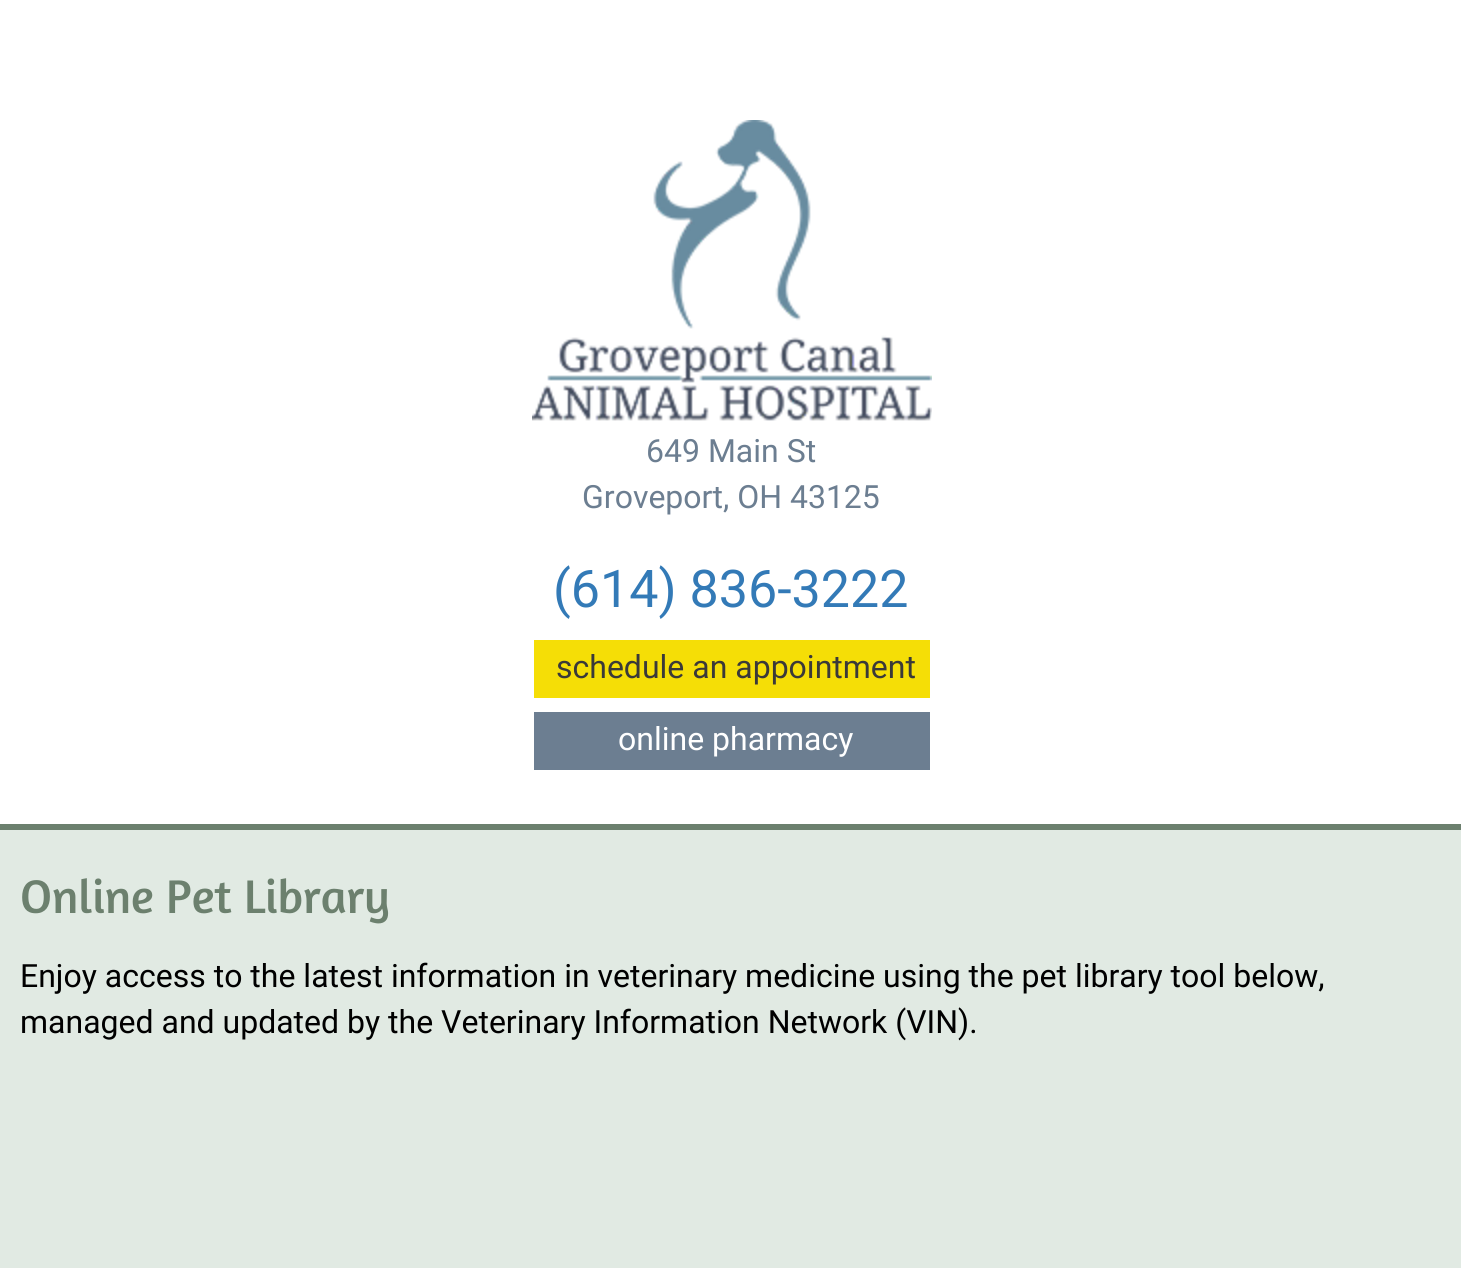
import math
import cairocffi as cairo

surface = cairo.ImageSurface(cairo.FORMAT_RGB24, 1461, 1268)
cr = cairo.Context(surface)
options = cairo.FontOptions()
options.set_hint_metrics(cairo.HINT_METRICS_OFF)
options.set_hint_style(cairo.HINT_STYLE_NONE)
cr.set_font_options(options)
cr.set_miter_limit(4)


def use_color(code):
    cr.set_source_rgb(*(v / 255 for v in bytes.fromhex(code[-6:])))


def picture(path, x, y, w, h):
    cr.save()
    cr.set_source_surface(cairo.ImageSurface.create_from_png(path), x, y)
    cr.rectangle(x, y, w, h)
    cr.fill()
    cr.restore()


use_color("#ffffff")
cr.paint()
picture("img1.png", 532, 120, 400, 301)
cr.select_font_face("Roboto")
cr.set_font_size(32)
use_color("#6c7e91")
cr.move_to(646, 462)
cr.show_text("649 Main St")
cr.move_to(582, 508)
cr.show_text("Groveport, OH 43125")
cr.set_font_size(52)
use_color("#337ab7")
cr.move_to(553, 607)
cr.show_text("(614) 836-3222")
use_color("#f5de06")
cr.rectangle(534, 640, 396, 58)
cr.fill()
cr.set_font_size(32)
use_color("#3a3939")
cr.move_to(556, 678)
cr.show_text("schedule an appointment")
use_color("#6c7e91")
cr.rectangle(534, 712, 396, 58)
cr.fill()
use_color("#ffffff")
cr.move_to(618, 750)
cr.show_text("online pharmacy")
use_color("#e1eae3")
cr.rectangle(0, 830, 1461, 438)
cr.fill()
use_color("#6c806e")
cr.rectangle(0, 824, 1461, 6)
cr.fill()
cr.select_font_face("Amaranth")
cr.set_font_size(48)
cr.move_to(20, 913)
cr.show_text("Online Pet Library")
cr.select_font_face("Roboto")
cr.set_font_size(32)
use_color("#000000")
cr.move_to(20, 987)
cr.show_text("Enjoy access to the latest information in veterinary medicine using the pet library tool below,")
cr.move_to(20, 1033)
cr.show_text("managed and updated by the Veterinary Information Network (VIN).")
surface.write_to_png("result.png")
